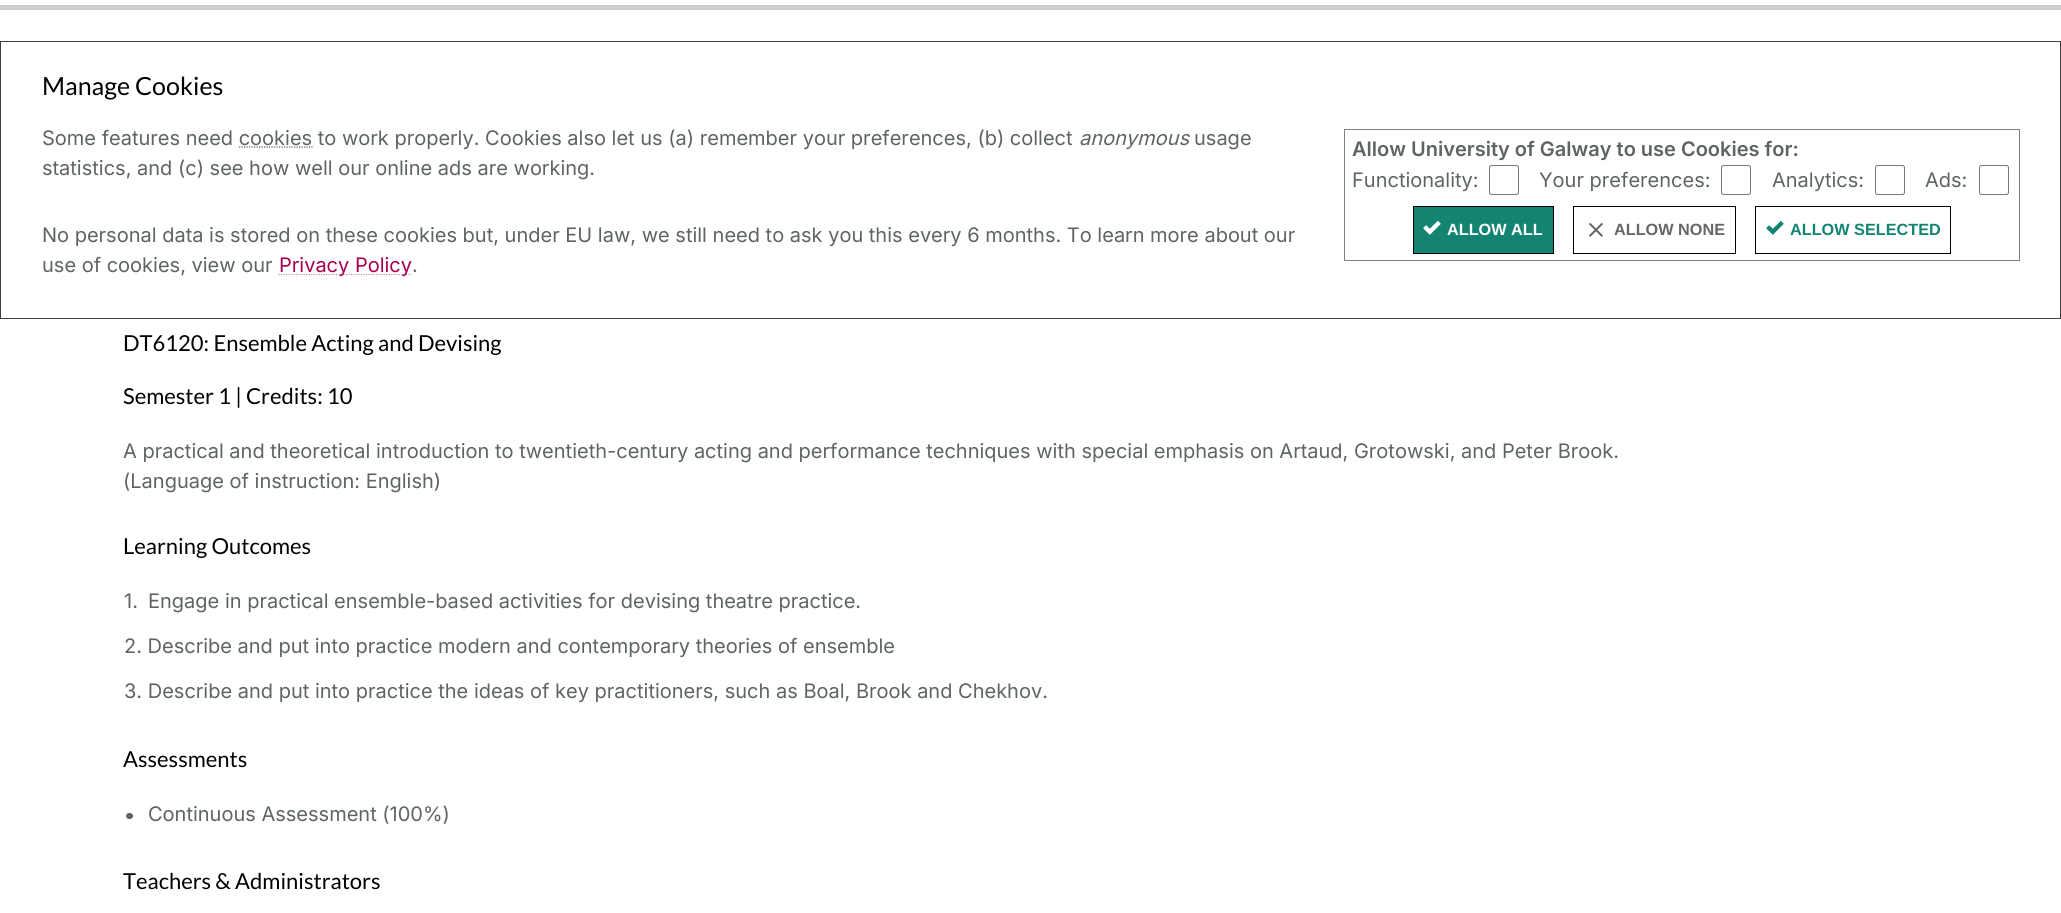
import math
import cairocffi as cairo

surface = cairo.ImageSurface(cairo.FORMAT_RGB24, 2061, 913)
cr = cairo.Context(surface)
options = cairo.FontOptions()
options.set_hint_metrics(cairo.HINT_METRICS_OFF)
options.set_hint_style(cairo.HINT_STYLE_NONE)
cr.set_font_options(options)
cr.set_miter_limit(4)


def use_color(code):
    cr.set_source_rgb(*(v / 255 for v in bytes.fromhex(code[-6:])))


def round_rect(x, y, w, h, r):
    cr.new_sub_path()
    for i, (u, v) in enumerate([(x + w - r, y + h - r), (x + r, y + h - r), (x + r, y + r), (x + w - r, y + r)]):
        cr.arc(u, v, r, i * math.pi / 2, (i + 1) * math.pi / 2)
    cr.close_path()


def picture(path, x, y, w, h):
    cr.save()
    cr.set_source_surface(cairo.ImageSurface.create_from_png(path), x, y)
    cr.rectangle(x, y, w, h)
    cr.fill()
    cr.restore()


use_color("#ffffff")
cr.paint()
use_color("#cccccc")
cr.rectangle(0, 5, 2061, 5)
cr.fill()
cr.rectangle(0.5, 41.5, 2060, 277)
use_color("#404040")
cr.set_line_width(1)
cr.stroke()
cr.select_font_face("Lato")
cr.set_font_size(25)
use_color("#000000")
cr.move_to(42, 95)
cr.show_text("Manage Cookies")
cr.select_font_face("Inter")
cr.set_font_size(20)
use_color("#5e6464")
cr.move_to(42, 145)
cr.show_text("Some features need cookies to work properly. Cookies also let us (a) remember your preferences, (b) collect")
cr.select_font_face("Inter", cairo.FONT_SLANT_ITALIC)
cr.move_to(1079, 145)
cr.show_text("anonymous")
cr.select_font_face("Inter")
cr.move_to(1194, 145)
cr.show_text("usage")
cr.new_path()
cr.move_to(239, 147)
cr.line_to(312.5, 147)
cr.set_line_width(1.2)
cr.set_dash([1.25, 1.25])
cr.stroke()
cr.move_to(42, 175)
cr.show_text("statistics, and (c) see how well our online ads are working.")
cr.rectangle(1344.5, 129.5, 675, 131)
use_color("#808080")
cr.set_line_width(1)
cr.set_dash([])
cr.stroke()
cr.select_font_face("Inter SemiBold")
use_color("#5e6464")
cr.move_to(1352, 156)
cr.show_text("Allow University of Galway to use Cookies for:")
cr.select_font_face("Inter")
cr.move_to(1352, 187)
cr.show_text("Functionality:")
round_rect(1489.5, 165.5, 29, 29, 2)
use_color("#767676")
cr.stroke()
use_color("#5e6464")
cr.move_to(1539, 187)
cr.show_text("Your preferences:")
round_rect(1721.5, 165.5, 29, 29, 2)
use_color("#767676")
cr.stroke()
use_color("#5e6464")
cr.move_to(1772, 187)
cr.show_text("Analytics:")
round_rect(1875.5, 165.5, 29, 29, 2)
use_color("#767676")
cr.stroke()
use_color("#5e6464")
cr.move_to(1925, 187)
cr.show_text("Ads:")
round_rect(1979.5, 165.5, 29, 29, 2)
use_color("#767676")
cr.stroke()
use_color("#128471")
cr.rectangle(1413.5, 206.5, 140, 47)
cr.fill_preserve()
use_color("#000000")
cr.stroke()
cr.select_font_face("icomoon")
cr.set_font_size(24)
use_color("#ffffff")
cr.move_to(1423, 240)
cr.show_text("✓")
cr.select_font_face("Liberation Sans", cairo.FONT_SLANT_NORMAL, cairo.FONT_WEIGHT_BOLD)
cr.set_font_size(16.25)
cr.move_to(1447, 235)
cr.show_text("ALLOW ALL")
cr.rectangle(1573.5, 206.5, 162, 47)
use_color("#000000")
cr.stroke()
picture("img1.png", 1588, 222, 15, 15)
use_color("#666666")
cr.move_to(1614, 235)
cr.show_text("ALLOW NONE")
cr.rectangle(1755.5, 206.5, 195, 47)
use_color("#000000")
cr.stroke()
cr.select_font_face("icomoon")
cr.set_font_size(24)
use_color("#128471")
cr.move_to(1766, 240)
cr.show_text("✓")
cr.select_font_face("Liberation Sans", cairo.FONT_SLANT_NORMAL, cairo.FONT_WEIGHT_BOLD)
cr.set_font_size(16.25)
cr.move_to(1790, 235)
cr.show_text("ALLOW SELECTED")
cr.select_font_face("Inter")
cr.set_font_size(20)
use_color("#5e6464")
cr.move_to(42, 242)
cr.show_text("No personal data is stored on these cookies but, under EU law, we still need to ask you this every 6 months. To learn more about our")
cr.move_to(42, 272)
cr.show_text("use of cookies, view our")
cr.new_path()
cr.move_to(278.5, 274.5)
cr.line_to(411.5, 274.5)
use_color("#c296ab")
cr.set_line_width(1.2)
cr.set_dash([1.25, 1.25])
cr.stroke()
use_color("#a80050")
cr.move_to(279, 272)
cr.show_text("Privacy Policy")
use_color("#5e6464")
cr.move_to(412, 272)
cr.show_text(".")
cr.select_font_face("Lato")
cr.set_font_size(22)
use_color("#000000")
cr.move_to(123, 351)
cr.show_text("DT6120: Ensemble Acting and Devising")
cr.move_to(123, 404)
cr.show_text("Semester 1 | Credits: 10")
cr.select_font_face("Inter")
cr.set_font_size(20)
use_color("#5e6464")
cr.move_to(123, 458)
cr.show_text("A practical and theoretical introduction to twentieth-century acting and performance techniques with special emphasis on Artaud, Grotowski, and Peter Brook.")
cr.move_to(123, 488)
cr.show_text("(Language of instruction: English)")
cr.select_font_face("Lato")
cr.set_font_size(22)
use_color("#000000")
cr.move_to(123, 554)
cr.show_text("Learning Outcomes")
cr.select_font_face("Inter")
cr.set_font_size(20)
use_color("#5e6464")
cr.move_to(124, 608)
cr.show_text("1.")
cr.move_to(148, 608)
cr.show_text("Engage in practical ensemble-based activities for devising theatre practice.")
cr.move_to(124, 653)
cr.show_text("2. Describe and put into practice modern and contemporary theories of ensemble")
cr.move_to(124, 698)
cr.show_text("3. Describe and put into practice the ideas of key practitioners, such as Boal, Brook and Chekhov.")
cr.select_font_face("Lato")
cr.set_font_size(22)
use_color("#000000")
cr.move_to(123, 767)
cr.show_text("Assessments")
use_color("#5e6464")
round_rect(126, 813, 7, 6, 3)
cr.fill()
cr.select_font_face("Inter")
cr.set_font_size(20)
cr.move_to(148, 821)
cr.show_text("Continuous Assessment (100%)")
cr.select_font_face("Lato")
cr.set_font_size(22)
use_color("#000000")
cr.move_to(123, 889)
cr.show_text("Teachers & Administrators")
surface.write_to_png("result.png")
